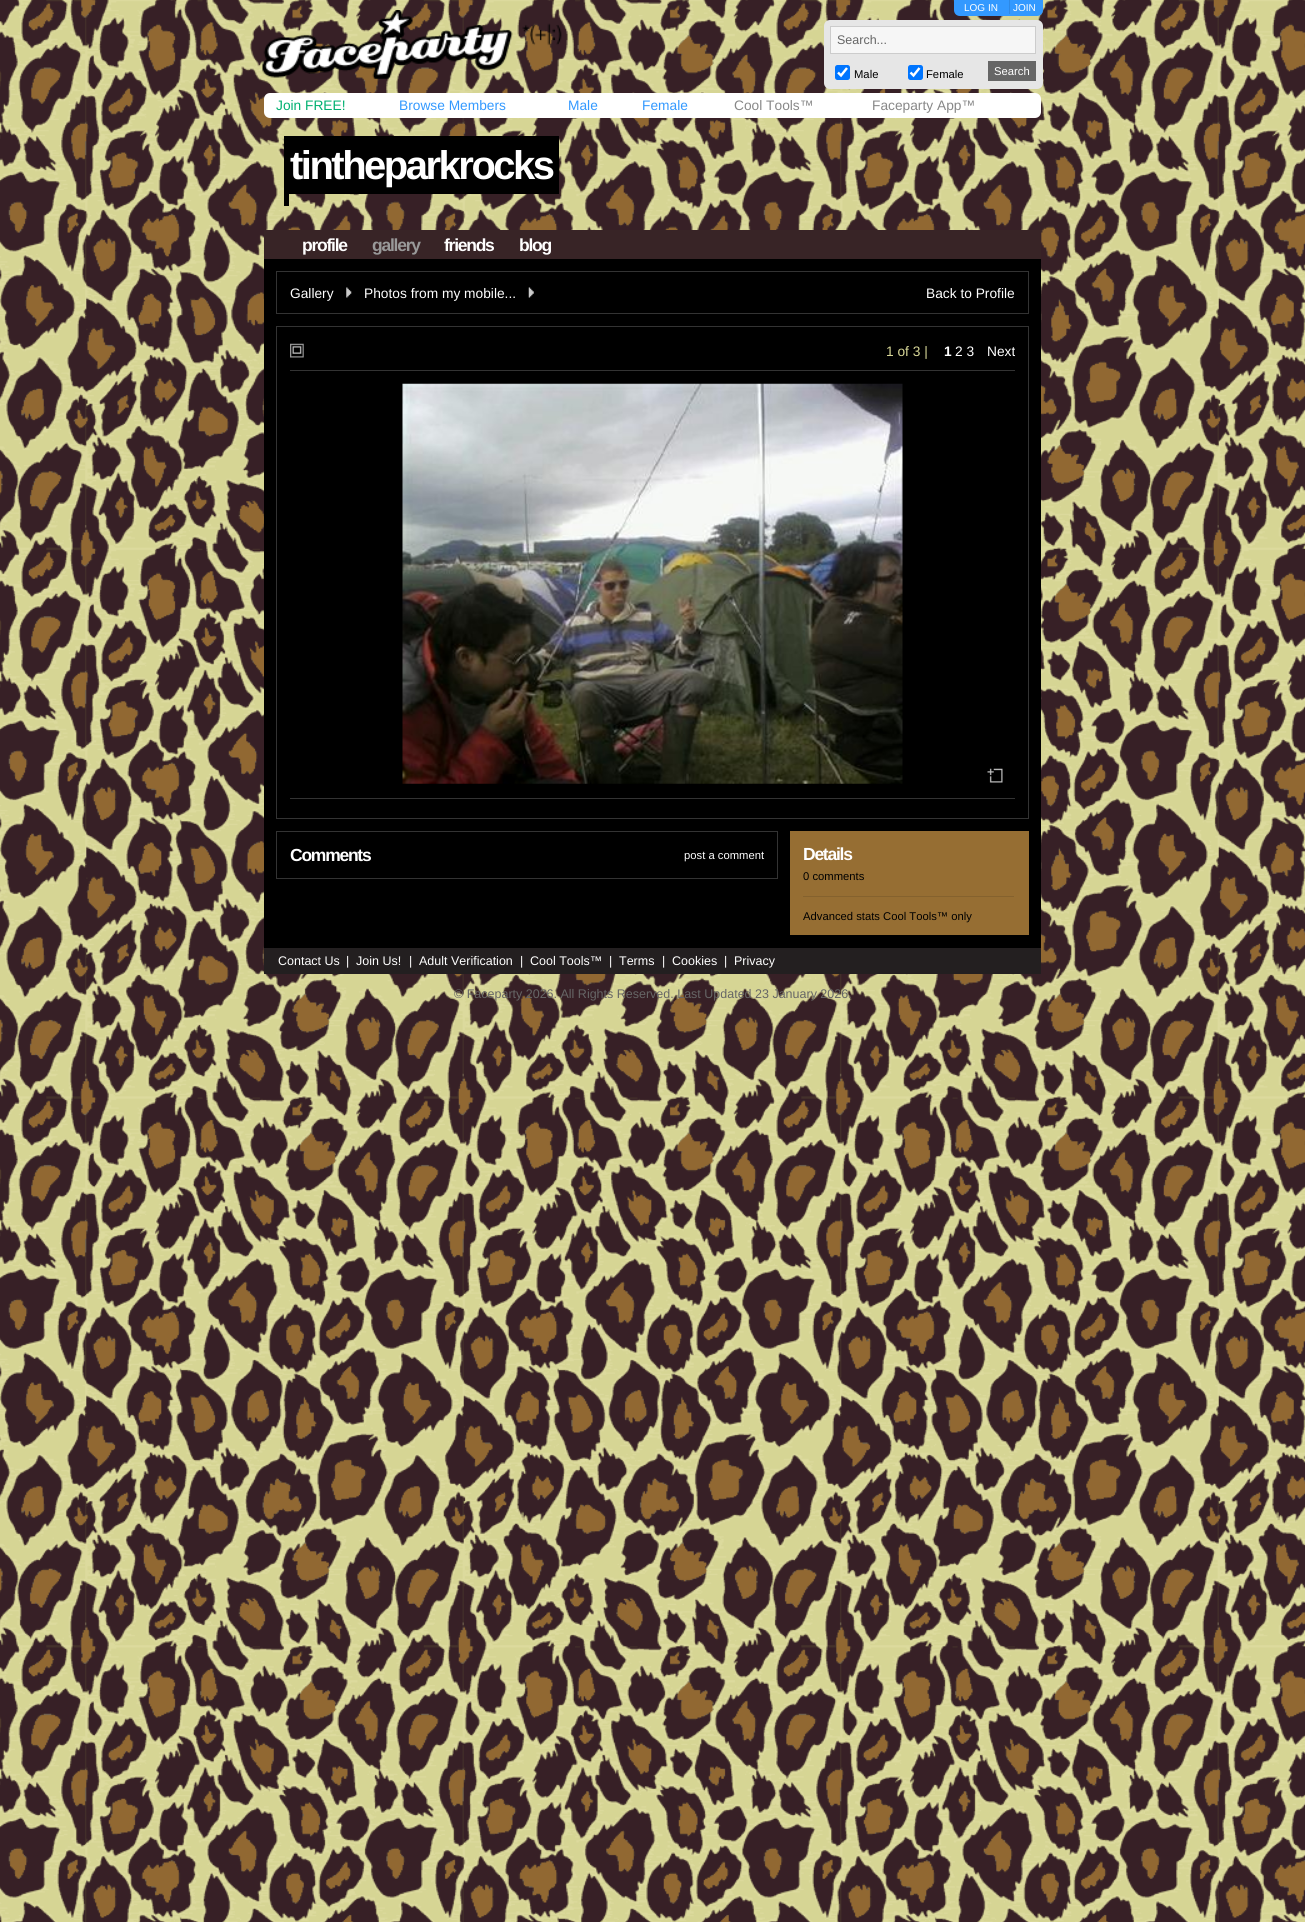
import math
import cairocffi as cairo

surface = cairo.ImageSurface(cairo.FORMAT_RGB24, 1305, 1922)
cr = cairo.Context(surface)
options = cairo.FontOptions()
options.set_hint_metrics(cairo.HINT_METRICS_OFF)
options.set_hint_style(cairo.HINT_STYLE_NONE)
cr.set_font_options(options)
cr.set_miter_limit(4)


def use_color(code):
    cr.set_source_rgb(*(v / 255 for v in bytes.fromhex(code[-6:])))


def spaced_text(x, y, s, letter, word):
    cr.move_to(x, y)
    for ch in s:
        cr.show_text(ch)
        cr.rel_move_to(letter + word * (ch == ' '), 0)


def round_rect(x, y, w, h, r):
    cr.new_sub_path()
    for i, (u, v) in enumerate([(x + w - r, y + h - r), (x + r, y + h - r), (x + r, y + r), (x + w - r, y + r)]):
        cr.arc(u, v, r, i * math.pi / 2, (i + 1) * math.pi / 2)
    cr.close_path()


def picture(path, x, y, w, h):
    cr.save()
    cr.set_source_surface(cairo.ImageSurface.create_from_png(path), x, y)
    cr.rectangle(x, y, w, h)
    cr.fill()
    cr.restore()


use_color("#ffffff")
cr.paint()
picture("img1.png", 0, 0, 1305, 1922)
picture("img2.png", 262, 10, 300, 69)
use_color("#3399ff")
cr.new_path()
cr.move_to(954, 0)
cr.line_to(1043, 0)
cr.line_to(1043, 10)
cr.curve_to(1043, 13.5, 1040.5, 16, 1037, 16)
cr.line_to(960, 16)
cr.curve_to(956.5, 16, 954, 13.5, 954, 10)
cr.close_path()
cr.fill()
use_color("#2e89e5")
cr.rectangle(1009, 0, 1, 14)
cr.fill()
cr.select_font_face("Liberation Sans")
cr.set_font_size(10)
use_color("#ffffff")
cr.move_to(964, 11)
cr.show_text("LOG IN")
cr.move_to(1013, 11)
cr.show_text("JOIN")
use_color("#e6e6e6")
round_rect(824, 20, 219, 69, 6)
cr.fill()
use_color("#f6f6f6")
cr.rectangle(830.5, 26.5, 205, 27)
cr.fill_preserve()
use_color("#cccccc")
cr.set_line_width(1)
cr.stroke()
cr.set_font_size(12.5)
use_color("#666666")
cr.move_to(837, 44)
cr.show_text("Search...")
use_color("#0075ff")
round_rect(835, 65, 15, 15, 2.5)
cr.fill()
cr.new_path()
cr.move_to(838, 72.5)
cr.line_to(841, 75.5)
cr.line_to(847, 68)
use_color("#ffffff")
cr.set_line_width(2.4)
cr.stroke()
cr.set_font_size(11.25)
use_color("#000000")
cr.move_to(854, 78)
cr.show_text("Male")
use_color("#0075ff")
round_rect(908, 65, 15, 15, 2.5)
cr.fill()
cr.new_path()
cr.move_to(910.5, 72.5)
cr.line_to(913.5, 75.5)
cr.line_to(919.5, 68)
use_color("#ffffff")
cr.stroke()
use_color("#000000")
cr.move_to(926, 78)
cr.show_text("Female")
use_color("#666666")
cr.rectangle(988, 61, 48, 20)
cr.fill()
use_color("#ffffff")
cr.move_to(994, 75)
cr.show_text("Search")
round_rect(264, 93, 777, 25, 6)
cr.fill()
cr.set_font_size(13.75)
use_color("#00b070")
cr.move_to(276, 110)
cr.show_text("Join FREE!")
use_color("#3399ff")
cr.move_to(399, 110)
cr.show_text("Browse Members")
cr.move_to(568, 110)
cr.show_text("Male")
cr.move_to(642, 110)
cr.show_text("Female")
use_color("#888888")
cr.move_to(734, 110)
cr.show_text("Cool Tools™")
cr.move_to(872, 110)
cr.show_text("Faceparty App™")
use_color("#000000")
cr.rectangle(284, 136, 275, 58)
cr.fill()
cr.select_font_face("Liberation Sans", cairo.FONT_SLANT_NORMAL, cairo.FONT_WEIGHT_BOLD)
cr.set_font_size(40)
use_color("#ffffff")
spaced_text(290, 179, "tintheparkrocks", -2.5, 0)
use_color("#000000")
cr.rectangle(284, 186, 5, 20)
cr.fill()
use_color("#382426")
cr.rectangle(264, 230, 777, 29)
cr.fill()
cr.set_font_size(17.5)
use_color("#ffffff")
spaced_text(302, 251, "profile", -1.25, 0)
use_color("#999999")
spaced_text(372, 251, "gallery", -1.25, 0)
use_color("#ffffff")
spaced_text(444, 251, "friends", -1.25, 0)
spaced_text(519, 251, "blog", -1.25, 0)
use_color("#000000")
cr.rectangle(264, 259, 777, 689)
cr.fill()
cr.rectangle(276.5, 271.5, 752, 42)
use_color("#333333")
cr.set_line_width(1)
cr.stroke()
cr.select_font_face("Liberation Sans")
cr.set_font_size(13.75)
use_color("#ffffff")
cr.move_to(290, 298)
cr.show_text("Gallery")
picture("img3.png", 346, 287, 6, 11)
cr.move_to(364, 298)
cr.show_text("Photos from my mobile...")
picture("img4.png", 528, 287, 6, 11)
cr.move_to(926, 298)
cr.show_text("Back to Profile")
cr.rectangle(276.5, 326.5, 752, 492)
use_color("#333333")
cr.stroke()
picture("img5.png", 290, 343, 14, 15)
use_color("#d9d898")
cr.move_to(886, 356)
cr.show_text("1 of 3 |")
cr.select_font_face("Liberation Sans", cairo.FONT_SLANT_NORMAL, cairo.FONT_WEIGHT_BOLD)
use_color("#ffffff")
cr.move_to(944, 356)
cr.show_text("1")
cr.select_font_face("Liberation Sans")
cr.move_to(955, 356)
cr.show_text("2 3")
cr.move_to(987, 356)
cr.show_text("Next")
use_color("#333333")
cr.rectangle(290, 370, 725, 1)
cr.fill()
picture("img6.png", 402, 383, 501, 401)
picture("img7.png", 987, 768, 16, 15)
cr.rectangle(290, 798, 725, 1)
cr.fill()
cr.rectangle(276.5, 831.5, 501, 47)
cr.stroke()
cr.select_font_face("Liberation Sans", cairo.FONT_SLANT_NORMAL, cairo.FONT_WEIGHT_BOLD)
cr.set_font_size(17.5)
use_color("#ffffff")
spaced_text(290, 861, "Comments", -1.25, 0)
cr.select_font_face("Liberation Sans")
cr.set_font_size(11.25)
cr.move_to(684, 859)
cr.show_text("post a comment")
use_color("#966e33")
cr.rectangle(790, 831, 239, 104)
cr.fill()
cr.select_font_face("Liberation Sans", cairo.FONT_SLANT_NORMAL, cairo.FONT_WEIGHT_BOLD)
cr.set_font_size(17.5)
use_color("#ffffff")
spaced_text(803, 860, "Details", -1.25, 0)
cr.select_font_face("Liberation Sans")
cr.set_font_size(11.25)
use_color("#000000")
cr.move_to(803, 880)
cr.show_text("0 comments")
use_color("#85622e")
cr.rectangle(803, 896, 211, 1)
cr.fill()
use_color("#000000")
cr.move_to(803, 920)
cr.show_text("Advanced stats Cool Tools™ only")
use_color("#231f20")
cr.rectangle(264, 948, 777, 26)
cr.fill()
cr.set_font_size(12.5)
use_color("#ffffff")
cr.move_to(278, 965)
cr.show_text("Contact Us")
cr.move_to(346, 965)
cr.show_text("|")
cr.move_to(356, 965)
cr.show_text("Join Us!")
cr.move_to(409, 965)
cr.show_text("|")
cr.move_to(419, 965)
cr.show_text("Adult Verification")
cr.move_to(520, 965)
cr.show_text("|")
cr.move_to(530, 965)
cr.show_text("Cool Tools™")
cr.move_to(609, 965)
cr.show_text("|")
cr.move_to(619, 965)
cr.show_text("Terms")
cr.move_to(662, 965)
cr.show_text("|")
cr.move_to(672, 965)
cr.show_text("Cookies")
cr.move_to(724, 965)
cr.show_text("|")
cr.move_to(734, 965)
cr.show_text("Privacy")
use_color("#666666")
cr.move_to(454, 998)
cr.show_text("© Faceparty 2026. All Rights Reserved. Last Updated 23 January 2026.")
surface.write_to_png("result.png")
